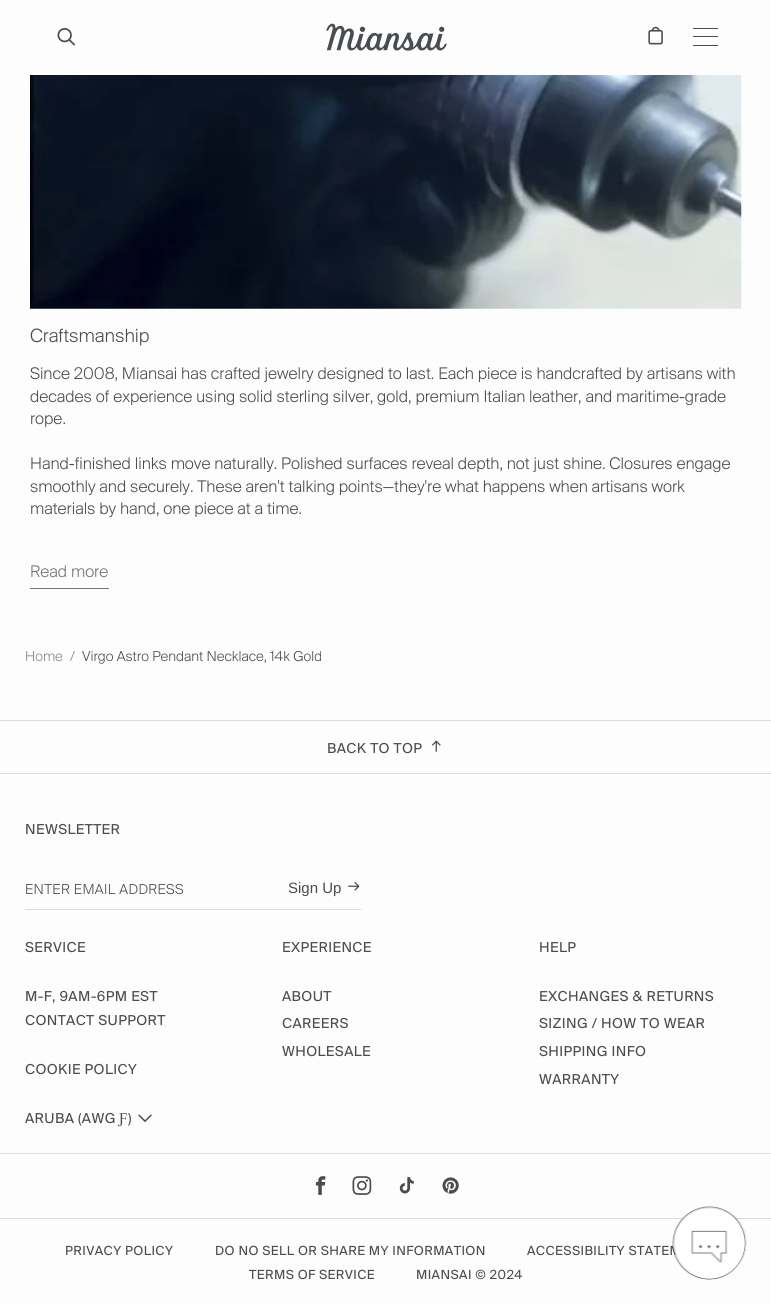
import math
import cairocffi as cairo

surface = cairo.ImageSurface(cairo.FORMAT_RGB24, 771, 1305)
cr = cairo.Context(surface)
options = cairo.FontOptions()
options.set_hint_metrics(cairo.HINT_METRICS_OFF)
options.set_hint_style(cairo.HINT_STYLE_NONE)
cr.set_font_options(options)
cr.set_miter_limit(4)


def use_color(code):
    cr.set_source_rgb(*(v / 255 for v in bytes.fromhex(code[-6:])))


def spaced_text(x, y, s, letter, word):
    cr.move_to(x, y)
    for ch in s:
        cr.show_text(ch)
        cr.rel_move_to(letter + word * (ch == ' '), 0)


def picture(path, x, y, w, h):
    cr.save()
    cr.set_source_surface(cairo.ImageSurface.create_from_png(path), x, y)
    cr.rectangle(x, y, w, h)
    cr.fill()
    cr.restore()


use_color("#fdfdfd")
cr.paint()
picture("img1.png", 326, 23, 121, 28)
picture("img2.png", 57, 28, 18, 18)
picture("img3.png", 648, 26, 15, 19)
use_color("#494d51")
cr.rectangle(693, 36, 25, 1)
cr.fill()
cr.rectangle(693, 28, 25, 1)
cr.fill()
cr.rectangle(693, 45, 25, 1)
cr.fill()
picture("img4.png", 30, 75, 712, 234)
cr.select_font_face("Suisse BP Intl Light")
cr.set_font_size(20)
cr.move_to(30, 342)
cr.show_text("Craftsmanship")
cr.set_font_size(17.5)
cr.move_to(30, 379)
cr.show_text("Since 2008, Miansai has crafted jewelry designed to last. Each piece is handcrafted by artisans with")
cr.move_to(30, 402)
cr.show_text("decades of experience using solid sterling silver, gold, premium Italian leather, and maritime-grade")
cr.move_to(30, 424)
cr.show_text("rope.")
cr.move_to(30, 469)
cr.show_text("Hand-finished links move naturally. Polished surfaces reveal depth, not just shine. Closures engage")
cr.move_to(30, 492)
cr.show_text("smoothly and securely. These aren't talking points—they're what happens when artisans work")
cr.move_to(30, 514)
cr.show_text("materials by hand, one piece at a time.")
use_color("#737373")
cr.rectangle(30, 588, 79, 1)
cr.fill()
cr.move_to(30, 577)
cr.show_text("Read more")
cr.set_font_size(15)
use_color("#848484")
cr.move_to(25, 661)
cr.show_text("Home")
cr.move_to(70, 661)
cr.show_text("/")
use_color("#494d51")
cr.move_to(82, 661)
cr.show_text("Virgo Astro Pendant Necklace, 14k Gold")
use_color("#dbdcdd")
cr.rectangle(0, 720, 771, 1)
cr.fill()
cr.rectangle(0, 773, 771, 1)
cr.fill()
cr.select_font_face("Suisse BP Intl")
use_color("#494d51")
spaced_text(327, 753, "BACK TO TOP", 0.4, 0)
picture("img5.png", 432, 740, 9, 12)
spaced_text(25, 834, "NEWSLETTER", 0.4, 0)
use_color("#dbdcdd")
cr.rectangle(25, 909, 336, 1)
cr.fill()
cr.select_font_face("Suisse BP Intl Light")
use_color("#494d51")
spaced_text(25, 894, "ENTER EMAIL ADDRESS", 0.4, 0)
cr.select_font_face("Liberation Sans")
cr.move_to(288, 893)
cr.show_text("Sign Up")
picture("img6.png", 348, 882, 12, 9)
use_color("#dbdcdd")
cr.rectangle(0, 1153, 771, 1)
cr.fill()
picture("img7.png", 315, 1176, 11, 19)
picture("img8.png", 352, 1176, 20, 19)
picture("img9.png", 399, 1177, 15, 17)
picture("img10.png", 442, 1177, 17, 17)
cr.select_font_face("Suisse BP Intl")
use_color("#494d51")
spaced_text(25, 952, "SERVICE", 0.4, 0)
spaced_text(25, 1001, "M-F, 9AM-6PM EST", 0.4, 0)
spaced_text(25, 1025, "CONTACT SUPPORT", 0.4, 0)
spaced_text(25, 1074, "COOKIE POLICY", 0.4, 0)
spaced_text(25, 1123, "ARUBA (AWG", 0.4, 0)
cr.select_font_face("Liberation Serif")
spaced_text(119, 1123, "Ƒ", 0.4, 0)
cr.select_font_face("Suisse BP Intl")
spaced_text(128, 1123, ")", 0.4, 0)
picture("img11.png", 138, 1114, 14, 8)
spaced_text(282, 952, "EXPERIENCE", 0.4, 0)
spaced_text(282, 1001, "ABOUT", 0.4, 0)
spaced_text(282, 1028, "CAREERS", 0.4, 0)
spaced_text(282, 1056, "WHOLESALE", 0.4, 0)
spaced_text(539, 952, "HELP", 0.4, 0)
spaced_text(539, 1001, "EXCHANGES & RETURNS", 0.4, 0)
spaced_text(539, 1028, "SIZING / HOW TO WEAR", 0.4, 0)
spaced_text(539, 1056, "SHIPPING INFO", 0.4, 0)
spaced_text(539, 1084, "WARRANTY", 0.4, 0)
use_color("#dbdcdd")
cr.rectangle(0, 1218, 771, 1)
cr.fill()
cr.set_font_size(13.75)
use_color("#494d51")
spaced_text(65, 1255, "PRIVACY POLICY", 0.4, 0)
spaced_text(215, 1255, "DO NO SELL OR SHARE MY INFORMATION", 0.4, 0)
spaced_text(527, 1255, "ACCESSIBILITY STATEM", 0.4, 0)
spaced_text(249, 1279, "TERMS OF SERVICE", 0.4, 0)
spaced_text(416, 1279, "MIANSAI © 2024", 0.4, 0)
picture("img12.png", 672, 1206, 75, 74)
surface.write_to_png("result.png")
